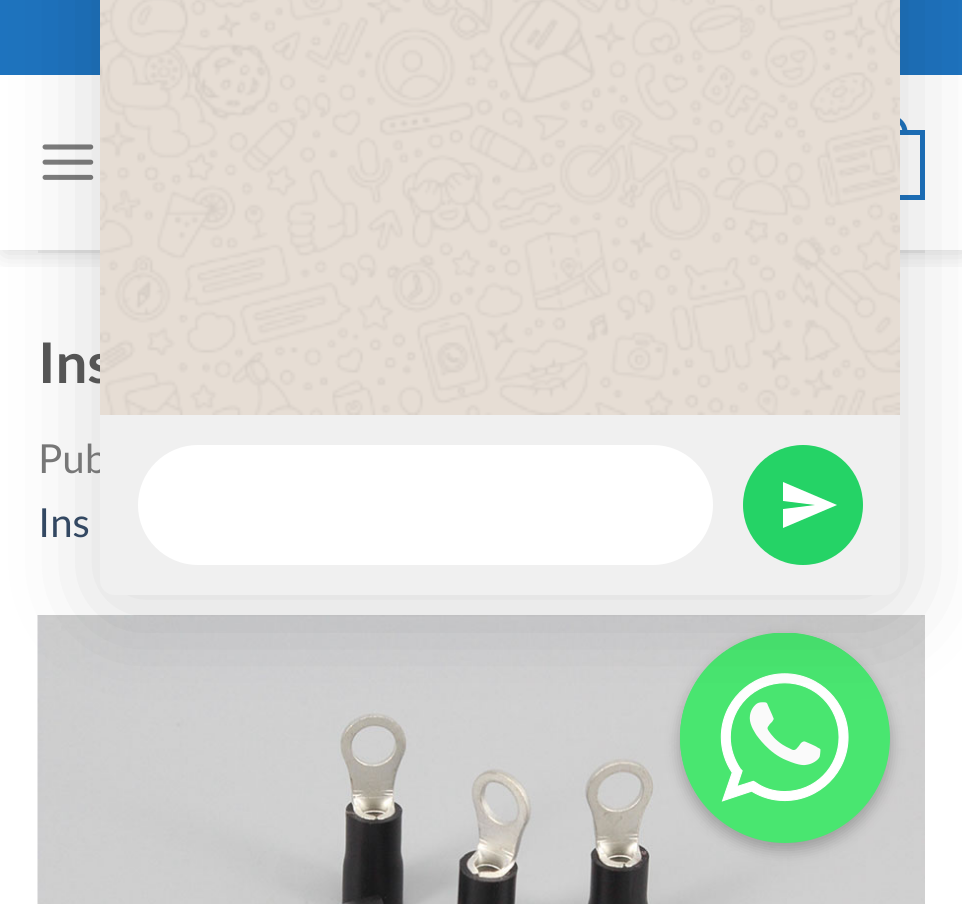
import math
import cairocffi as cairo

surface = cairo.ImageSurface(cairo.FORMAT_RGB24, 962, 904)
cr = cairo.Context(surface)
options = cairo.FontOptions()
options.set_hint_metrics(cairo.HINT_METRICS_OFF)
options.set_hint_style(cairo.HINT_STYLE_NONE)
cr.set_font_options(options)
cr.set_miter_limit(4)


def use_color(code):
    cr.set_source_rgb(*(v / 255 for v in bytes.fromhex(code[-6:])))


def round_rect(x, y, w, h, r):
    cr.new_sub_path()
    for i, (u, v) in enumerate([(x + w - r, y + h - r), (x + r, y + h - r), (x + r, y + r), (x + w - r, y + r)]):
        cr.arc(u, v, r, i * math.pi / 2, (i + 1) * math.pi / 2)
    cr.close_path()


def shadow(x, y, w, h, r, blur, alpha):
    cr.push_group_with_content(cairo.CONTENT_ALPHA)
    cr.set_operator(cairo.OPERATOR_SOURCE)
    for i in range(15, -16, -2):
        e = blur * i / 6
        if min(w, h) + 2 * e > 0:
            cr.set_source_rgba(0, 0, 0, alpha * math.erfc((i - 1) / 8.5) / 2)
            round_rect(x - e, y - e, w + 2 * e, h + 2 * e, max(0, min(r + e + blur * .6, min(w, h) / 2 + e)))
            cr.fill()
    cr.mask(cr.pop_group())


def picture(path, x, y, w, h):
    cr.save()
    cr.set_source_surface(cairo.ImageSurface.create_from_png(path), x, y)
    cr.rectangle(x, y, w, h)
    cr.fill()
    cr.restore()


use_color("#ffffff")
cr.paint()
cr.save()
cr.rectangle(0, 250, 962, 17)
cr.clip()
use_color("#000000")
shadow(3, 3, 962, 250, 0, 12.5, 0.15)
cr.restore()
use_color("#1e73be")
cr.rectangle(0, 0, 962, 75)
cr.fill()
picture("img2.png", 42, 144, 52, 36)
cr.rectangle(857.5, 132.5, 65, 65)
cr.set_line_width(5)
cr.stroke()
cr.set_fill_rule(cairo.FILL_RULE_EVEN_ODD)
cr.new_path()
cr.move_to(890, 115)
cr.curve_to(899.5, 115, 907.5, 123, 907.5, 132.5)
cr.line_to(907.5, 135)
cr.line_to(872.5, 135)
cr.line_to(872.5, 132.5)
cr.curve_to(872.5, 123, 880.5, 115, 890, 115)
cr.close_path()
cr.move_to(890, 120)
cr.curve_to(897, 120, 902.5, 125.5, 902.5, 132.5)
cr.line_to(902.5, 135)
cr.line_to(877.5, 135)
cr.line_to(877.5, 132.5)
cr.curve_to(877.5, 125.5, 883, 120, 890, 120)
cr.close_path()
cr.fill()
use_color("#dfdfdf")
cr.rectangle(38, 250, 887, 3)
cr.fill()
picture("img3.png", 37, 615, 888, 289)
use_color("#000000")
shadow(680, 640, 210, 210, 105, 7.5, 0.25)
use_color("#49e670")
cr.arc(785, 738, 105, 0, 2 * math.pi)
cr.fill()
picture("img4.png", 680, 633, 205, 169)
use_color("#000000")
shadow(100, -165, 800, 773, 15, 50, 0.16)
cr.select_font_face("Lato", cairo.FONT_SLANT_NORMAL, cairo.FONT_WEIGHT_BOLD)
cr.set_font_size(56)
use_color("#555555")
cr.move_to(38, 383)
cr.show_text("Ins")
use_color("#e6ddd4")
cr.rectangle(100, 0, 800, 415)
cr.fill()
picture("img1.png", 100, 0, 800, 415)
cr.select_font_face("Lato")
cr.set_font_size(40)
use_color("#777777")
cr.move_to(38, 473)
cr.show_text("Pub")
use_color("#f0f0f0")
cr.new_path()
cr.move_to(100, 415)
cr.line_to(900, 415)
cr.line_to(900, 580)
cr.curve_to(900, 588.5, 893.5, 595, 885, 595)
cr.line_to(115, 595)
cr.curve_to(106.5, 595, 100, 588.5, 100, 580)
cr.close_path()
cr.fill()
use_color("#ffffff")
round_rect(138, 445, 575, 120, 60)
cr.fill()
use_color("#25d366")
cr.arc(803, 505, 60, 0, 2 * math.pi)
cr.fill()
use_color("#ffffff")
cr.set_fill_rule(cairo.FILL_RULE_WINDING)
cr.new_path()
cr.move_to(783, 528)
cr.line_to(837, 505)
cr.line_to(783, 482)
cr.line_to(783, 501)
cr.line_to(815, 505)
cr.line_to(783, 509)
cr.close_path()
cr.fill()
use_color("#334862")
cr.move_to(38, 537)
cr.show_text("Ins")
surface.write_to_png("result.png")
